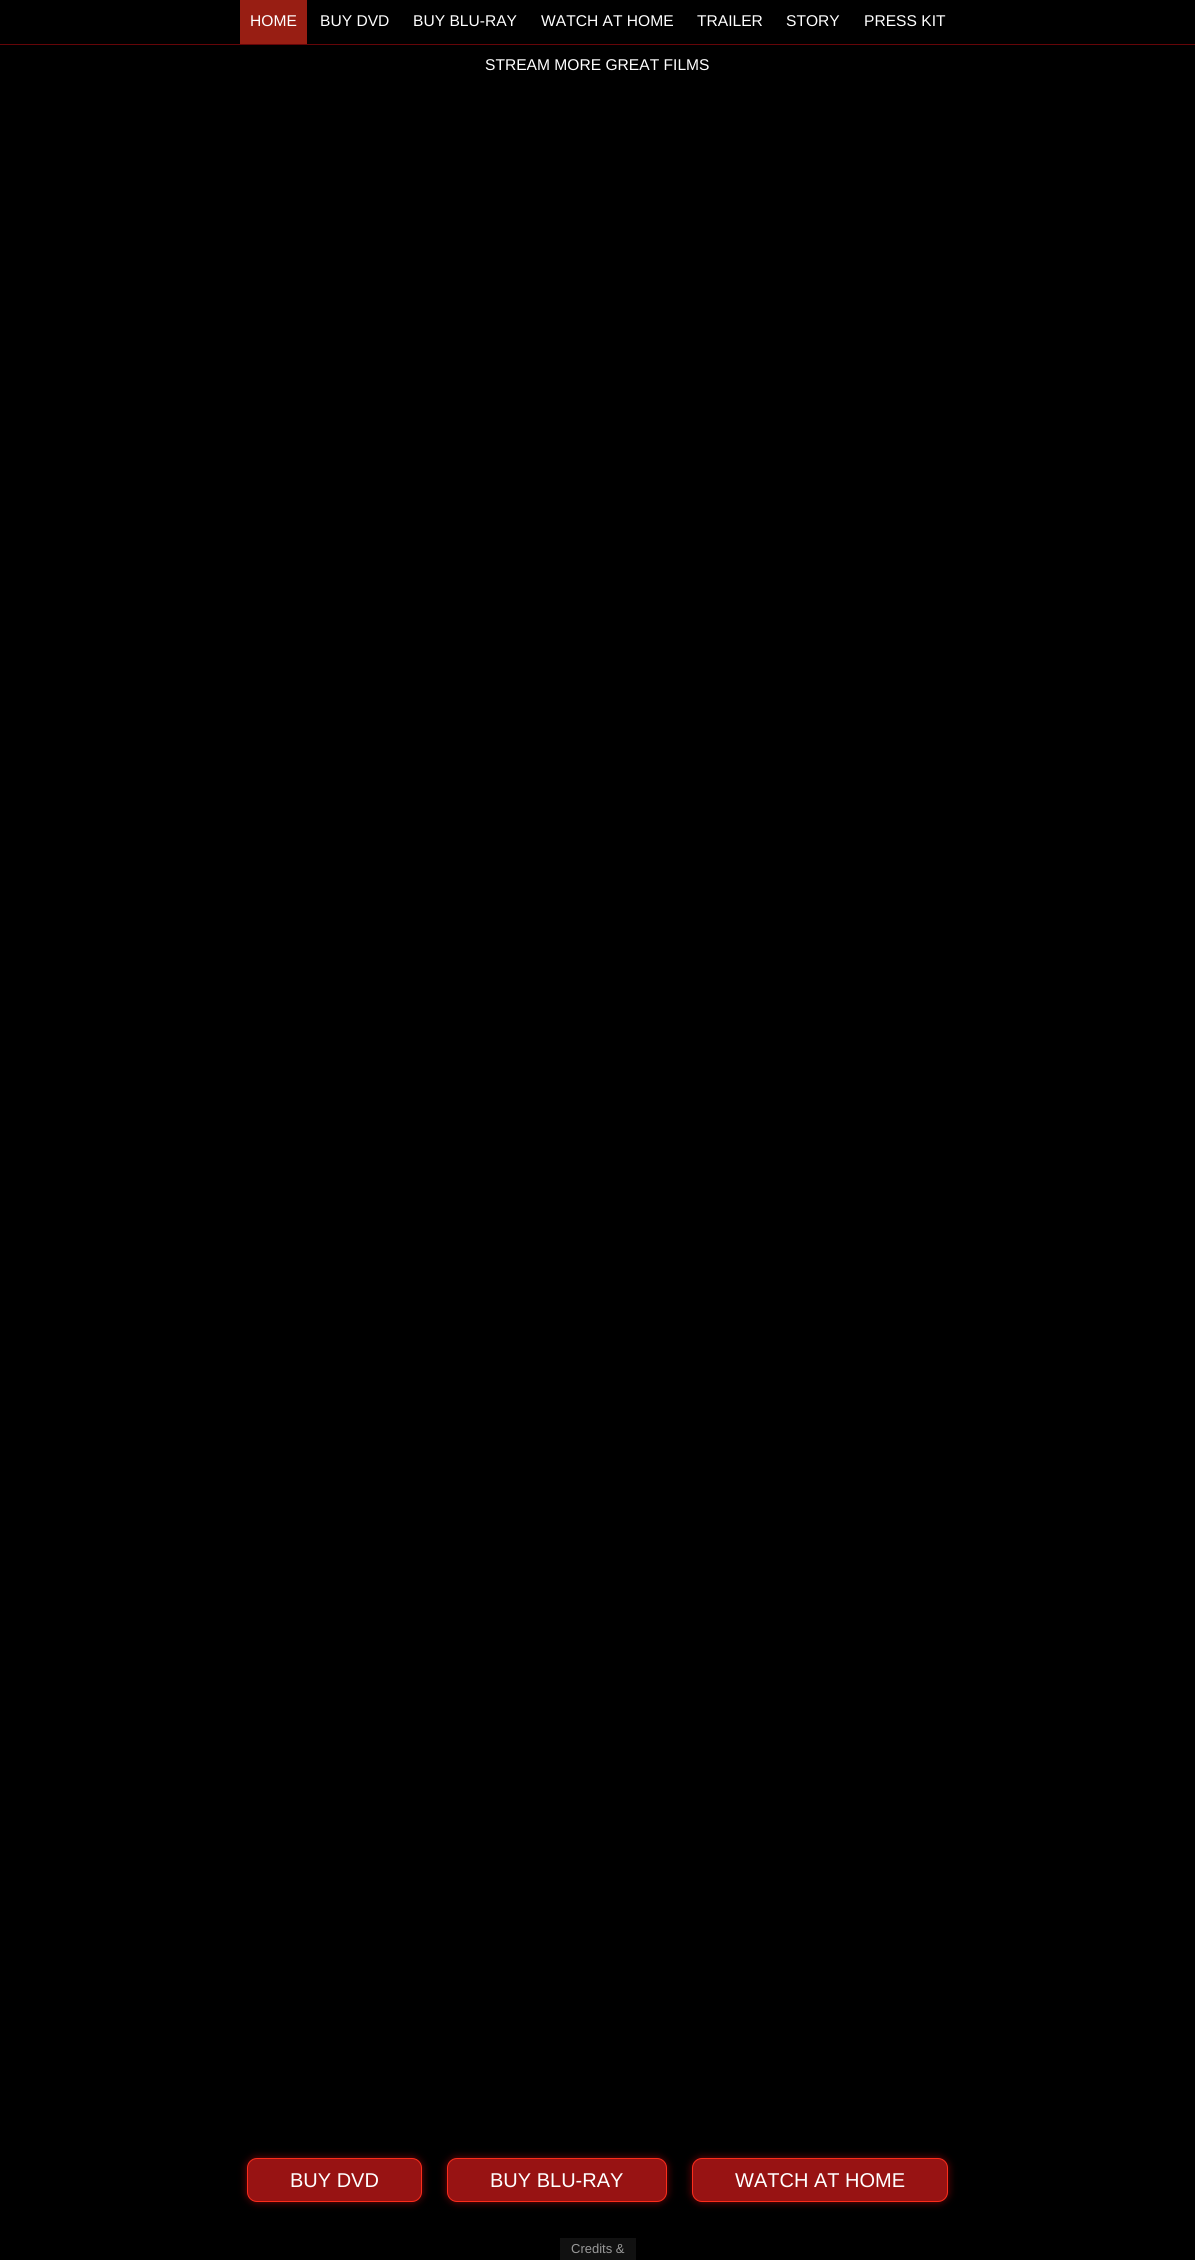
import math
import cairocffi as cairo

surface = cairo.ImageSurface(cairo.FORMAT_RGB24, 1195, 2260)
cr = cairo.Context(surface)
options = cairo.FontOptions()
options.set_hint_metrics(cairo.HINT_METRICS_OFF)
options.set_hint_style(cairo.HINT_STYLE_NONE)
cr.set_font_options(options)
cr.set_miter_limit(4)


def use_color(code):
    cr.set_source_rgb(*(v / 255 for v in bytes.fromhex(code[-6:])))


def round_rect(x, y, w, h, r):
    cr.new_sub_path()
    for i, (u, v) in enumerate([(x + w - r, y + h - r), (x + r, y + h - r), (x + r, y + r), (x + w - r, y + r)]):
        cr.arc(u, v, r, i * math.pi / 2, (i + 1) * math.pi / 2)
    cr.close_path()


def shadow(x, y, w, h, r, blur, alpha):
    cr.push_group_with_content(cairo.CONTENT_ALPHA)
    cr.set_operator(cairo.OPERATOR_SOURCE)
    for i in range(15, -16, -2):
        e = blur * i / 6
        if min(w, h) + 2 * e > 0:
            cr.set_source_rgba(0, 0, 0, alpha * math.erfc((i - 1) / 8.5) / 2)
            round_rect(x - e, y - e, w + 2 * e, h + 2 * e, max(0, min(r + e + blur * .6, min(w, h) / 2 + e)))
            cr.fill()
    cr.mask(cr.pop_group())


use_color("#000000")
cr.paint()
use_color("#650508")
cr.rectangle(0, 44, 1195, 1)
cr.fill()
use_color("#981e13")
cr.rectangle(240, 0, 67, 44)
cr.fill()
cr.select_font_face("Liberation Sans")
cr.set_font_size(15.6)
use_color("#ffffff")
cr.move_to(250, 26)
cr.show_text("HOME")
cr.move_to(320, 26)
cr.show_text("BUY DVD")
cr.move_to(413, 26)
cr.show_text("BUY BLU-RAY")
cr.move_to(541, 26)
cr.show_text("WATCH AT HOME")
cr.move_to(697, 26)
cr.show_text("TRAILER")
cr.move_to(786, 26)
cr.show_text("STORY")
cr.move_to(864, 26)
cr.show_text("PRESS KIT")
cr.move_to(485, 70)
cr.show_text("STREAM MORE GREAT FILMS")
use_color("#c90a10")
shadow(247, 2158, 175, 44, 10, 4, 0.6)
use_color("#981313")
round_rect(247.5, 2158.5, 174, 43, 9.5)
cr.fill_preserve()
use_color("#fd2d1b")
cr.set_line_width(1)
cr.stroke()
cr.set_font_size(20)
use_color("#ffffff")
cr.move_to(290, 2187)
cr.show_text("BUY DVD")
use_color("#c90a10")
shadow(447, 2158, 220, 44, 10, 4, 0.6)
use_color("#981313")
round_rect(447.5, 2158.5, 219, 43, 9.5)
cr.fill_preserve()
use_color("#fd2d1b")
cr.stroke()
use_color("#ffffff")
cr.move_to(490, 2187)
cr.show_text("BUY BLU-RAY")
use_color("#c90a10")
shadow(692, 2158, 256, 44, 10, 4, 0.6)
use_color("#981313")
round_rect(692.5, 2158.5, 255, 43, 9.5)
cr.fill_preserve()
use_color("#fd2d1b")
cr.stroke()
use_color("#ffffff")
cr.move_to(735, 2187)
cr.show_text("WATCH AT HOME")
use_color("#111111")
cr.rectangle(560, 2238, 76, 22)
cr.fill()
cr.set_font_size(13)
use_color("#999999")
cr.move_to(571, 2253)
cr.show_text("Credits &")
surface.write_to_png("result.png")
